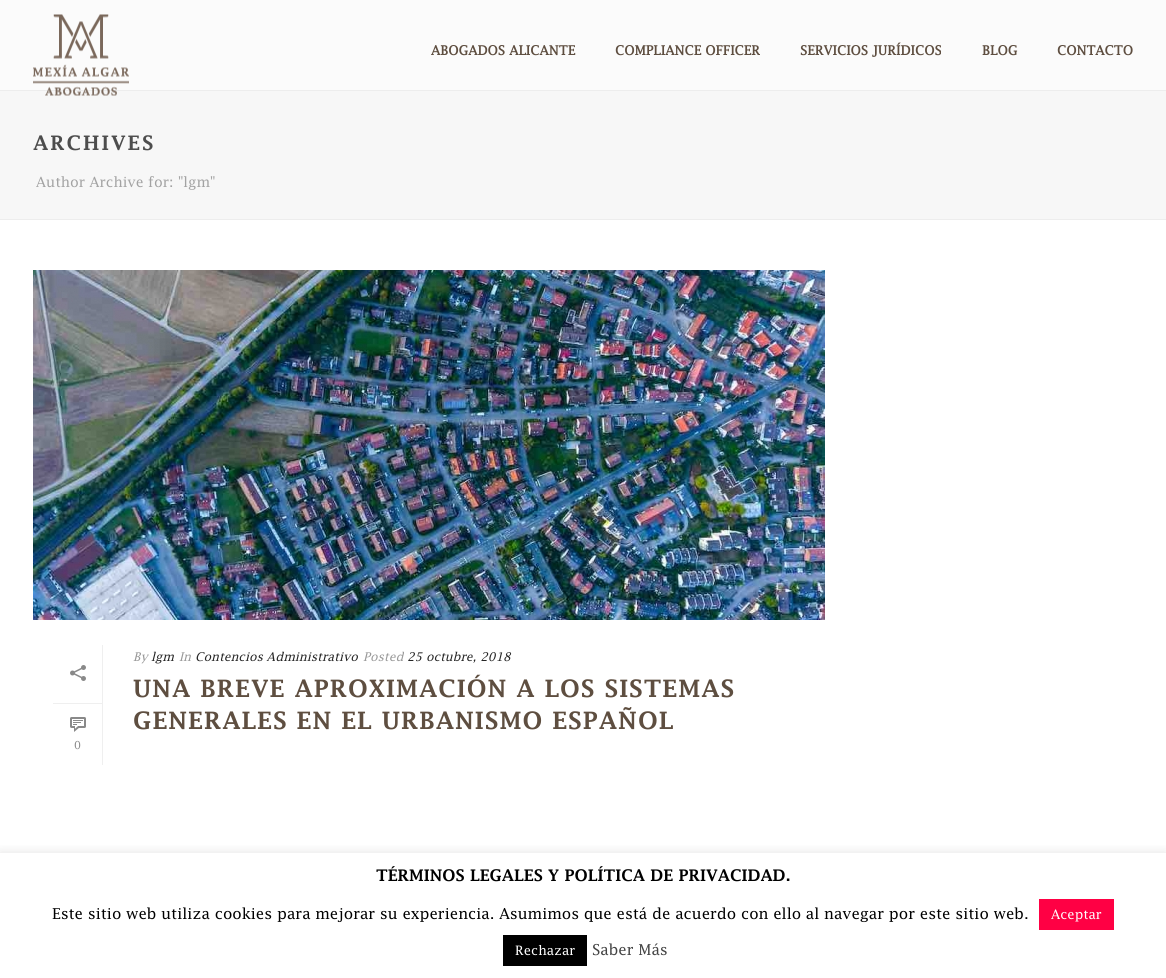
import math
import cairocffi as cairo

surface = cairo.ImageSurface(cairo.FORMAT_RGB24, 1166, 978)
cr = cairo.Context(surface)
options = cairo.FontOptions()
options.set_hint_metrics(cairo.HINT_METRICS_OFF)
options.set_hint_style(cairo.HINT_STYLE_NONE)
cr.set_font_options(options)
cr.set_miter_limit(4)


def use_color(code):
    cr.set_source_rgb(*(v / 255 for v in bytes.fromhex(code[-6:])))


def spaced_text(x, y, s, letter, word):
    cr.move_to(x, y)
    for ch in s:
        cr.show_text(ch)
        cr.rel_move_to(letter + word * (ch == ' '), 0)


def round_rect(x, y, w, h, r):
    cr.new_sub_path()
    for i, (u, v) in enumerate([(x + w - r, y + h - r), (x + r, y + h - r), (x + r, y + r), (x + w - r, y + r)]):
        cr.arc(u, v, r, i * math.pi / 2, (i + 1) * math.pi / 2)
    cr.close_path()


def shadow(x, y, w, h, r, blur, alpha):
    cr.push_group_with_content(cairo.CONTENT_ALPHA)
    cr.set_operator(cairo.OPERATOR_SOURCE)
    for i in range(15, -16, -2):
        e = blur * i / 6
        if min(w, h) + 2 * e > 0:
            cr.set_source_rgba(0, 0, 0, alpha * math.erfc((i - 1) / 8.5) / 2)
            round_rect(x - e, y - e, w + 2 * e, h + 2 * e, max(0, min(r + e + blur * .6, min(w, h) / 2 + e)))
            cr.fill()
    cr.mask(cr.pop_group())


def picture(path, x, y, w, h):
    cr.save()
    cr.set_source_surface(cairo.ImageSurface.create_from_png(path), x, y)
    cr.rectangle(x, y, w, h)
    cr.fill()
    cr.restore()


use_color("#ffffff")
cr.paint()
use_color("#f7f7f7")
cr.rectangle(0, 91, 1166, 128)
cr.fill()
use_color("#ededed")
cr.rectangle(0, 219, 1166, 1)
cr.fill()
cr.rectangle(0, 90, 1166, 1)
cr.fill()
use_color("#fbfbfb")
cr.rectangle(0, 0, 1166, 90)
cr.fill()
picture("img1.png", 33, 14, 96, 82)
cr.select_font_face("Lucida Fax", cairo.FONT_SLANT_NORMAL, cairo.FONT_WEIGHT_BOLD)
cr.set_font_size(13)
use_color("#5e4e40")
cr.move_to(431, 55)
cr.show_text("ABOGADOS ALICANTE")
cr.move_to(615, 55)
cr.show_text("COMPLIANCE OFFICER")
cr.move_to(800, 55)
cr.show_text("SERVICIOS JURÍDICOS")
cr.move_to(982, 55)
cr.show_text("BLOG")
cr.move_to(1057, 55)
cr.show_text("CONTACTO")
cr.select_font_face("Lucida Fax SemiBold")
cr.set_font_size(20)
use_color("#4d4d4d")
spaced_text(33, 150, "ARCHIVES", 2, 0)
cr.select_font_face("Lucida Fax")
cr.set_font_size(14)
use_color("#a3a3a3")
cr.move_to(36, 187)
cr.show_text("Author Archive for: \"lgm\"")
picture("img2.png", 33, 270, 792, 350)
cr.select_font_face("Lucida Fax", cairo.FONT_SLANT_ITALIC)
cr.set_font_size(12)
use_color("#999999")
cr.move_to(133, 661)
cr.show_text("By")
use_color("#252525")
cr.move_to(151, 661)
cr.show_text("lgm")
use_color("#999999")
cr.move_to(179, 661)
cr.show_text("In")
use_color("#252525")
cr.move_to(195, 661)
cr.show_text("Contencios Administrativo")
use_color("#999999")
cr.move_to(363, 661)
cr.show_text("Posted")
use_color("#252525")
cr.move_to(407, 661)
cr.show_text("25 octubre, 2018")
cr.select_font_face("Lucida Fax SemiBold")
cr.set_font_size(24)
use_color("#5e4e40")
spaced_text(133, 697, "UNA BREVE APROXIMACIÓN A LOS SISTEMAS", 1, 0)
spaced_text(133, 729, "GENERALES EN EL URBANISMO ESPAÑOL", 1, 0)
cr.save()
cr.rectangle(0, 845, 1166, 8)
cr.clip()
use_color("#acabab")
shadow(0, 852, 1166, 125, 0, 5, 0.3)
cr.restore()
cr.set_font_size(16)
use_color("#000000")
cr.move_to(376, 881)
cr.show_text("TÉRMINOS LEGALES Y POLÍTICA DE PRIVACIDAD.")
cr.select_font_face("Lucida Fax")
cr.set_font_size(15)
cr.move_to(52, 919)
cr.show_text("Este sitio web utiliza cookies para mejorar su experiencia. Asumimos que está de acuerdo con ello al navegar por este sitio web.")
use_color("#ff0044")
cr.rectangle(1039, 899, 75, 31)
cr.fill()
cr.set_font_size(13)
use_color("#ffffff")
cr.move_to(1051, 919)
cr.show_text("Aceptar")
use_color("#000000")
cr.rectangle(503, 935, 84, 31)
cr.fill()
use_color("#ffffff")
cr.move_to(515, 955)
cr.show_text("Rechazar")
cr.set_font_size(15)
use_color("#444444")
cr.move_to(592, 955)
cr.show_text("Saber Más")
use_color("#efefef")
cr.rectangle(102, 645, 1, 120)
cr.fill()
cr.rectangle(53, 703, 49, 1)
cr.fill()
picture("img3.png", 70, 665, 16, 16)
picture("img4.png", 70, 717, 16, 15)
cr.set_font_size(11)
use_color("#898989")
cr.move_to(74, 749)
cr.show_text("0")
surface.write_to_png("result.png")
